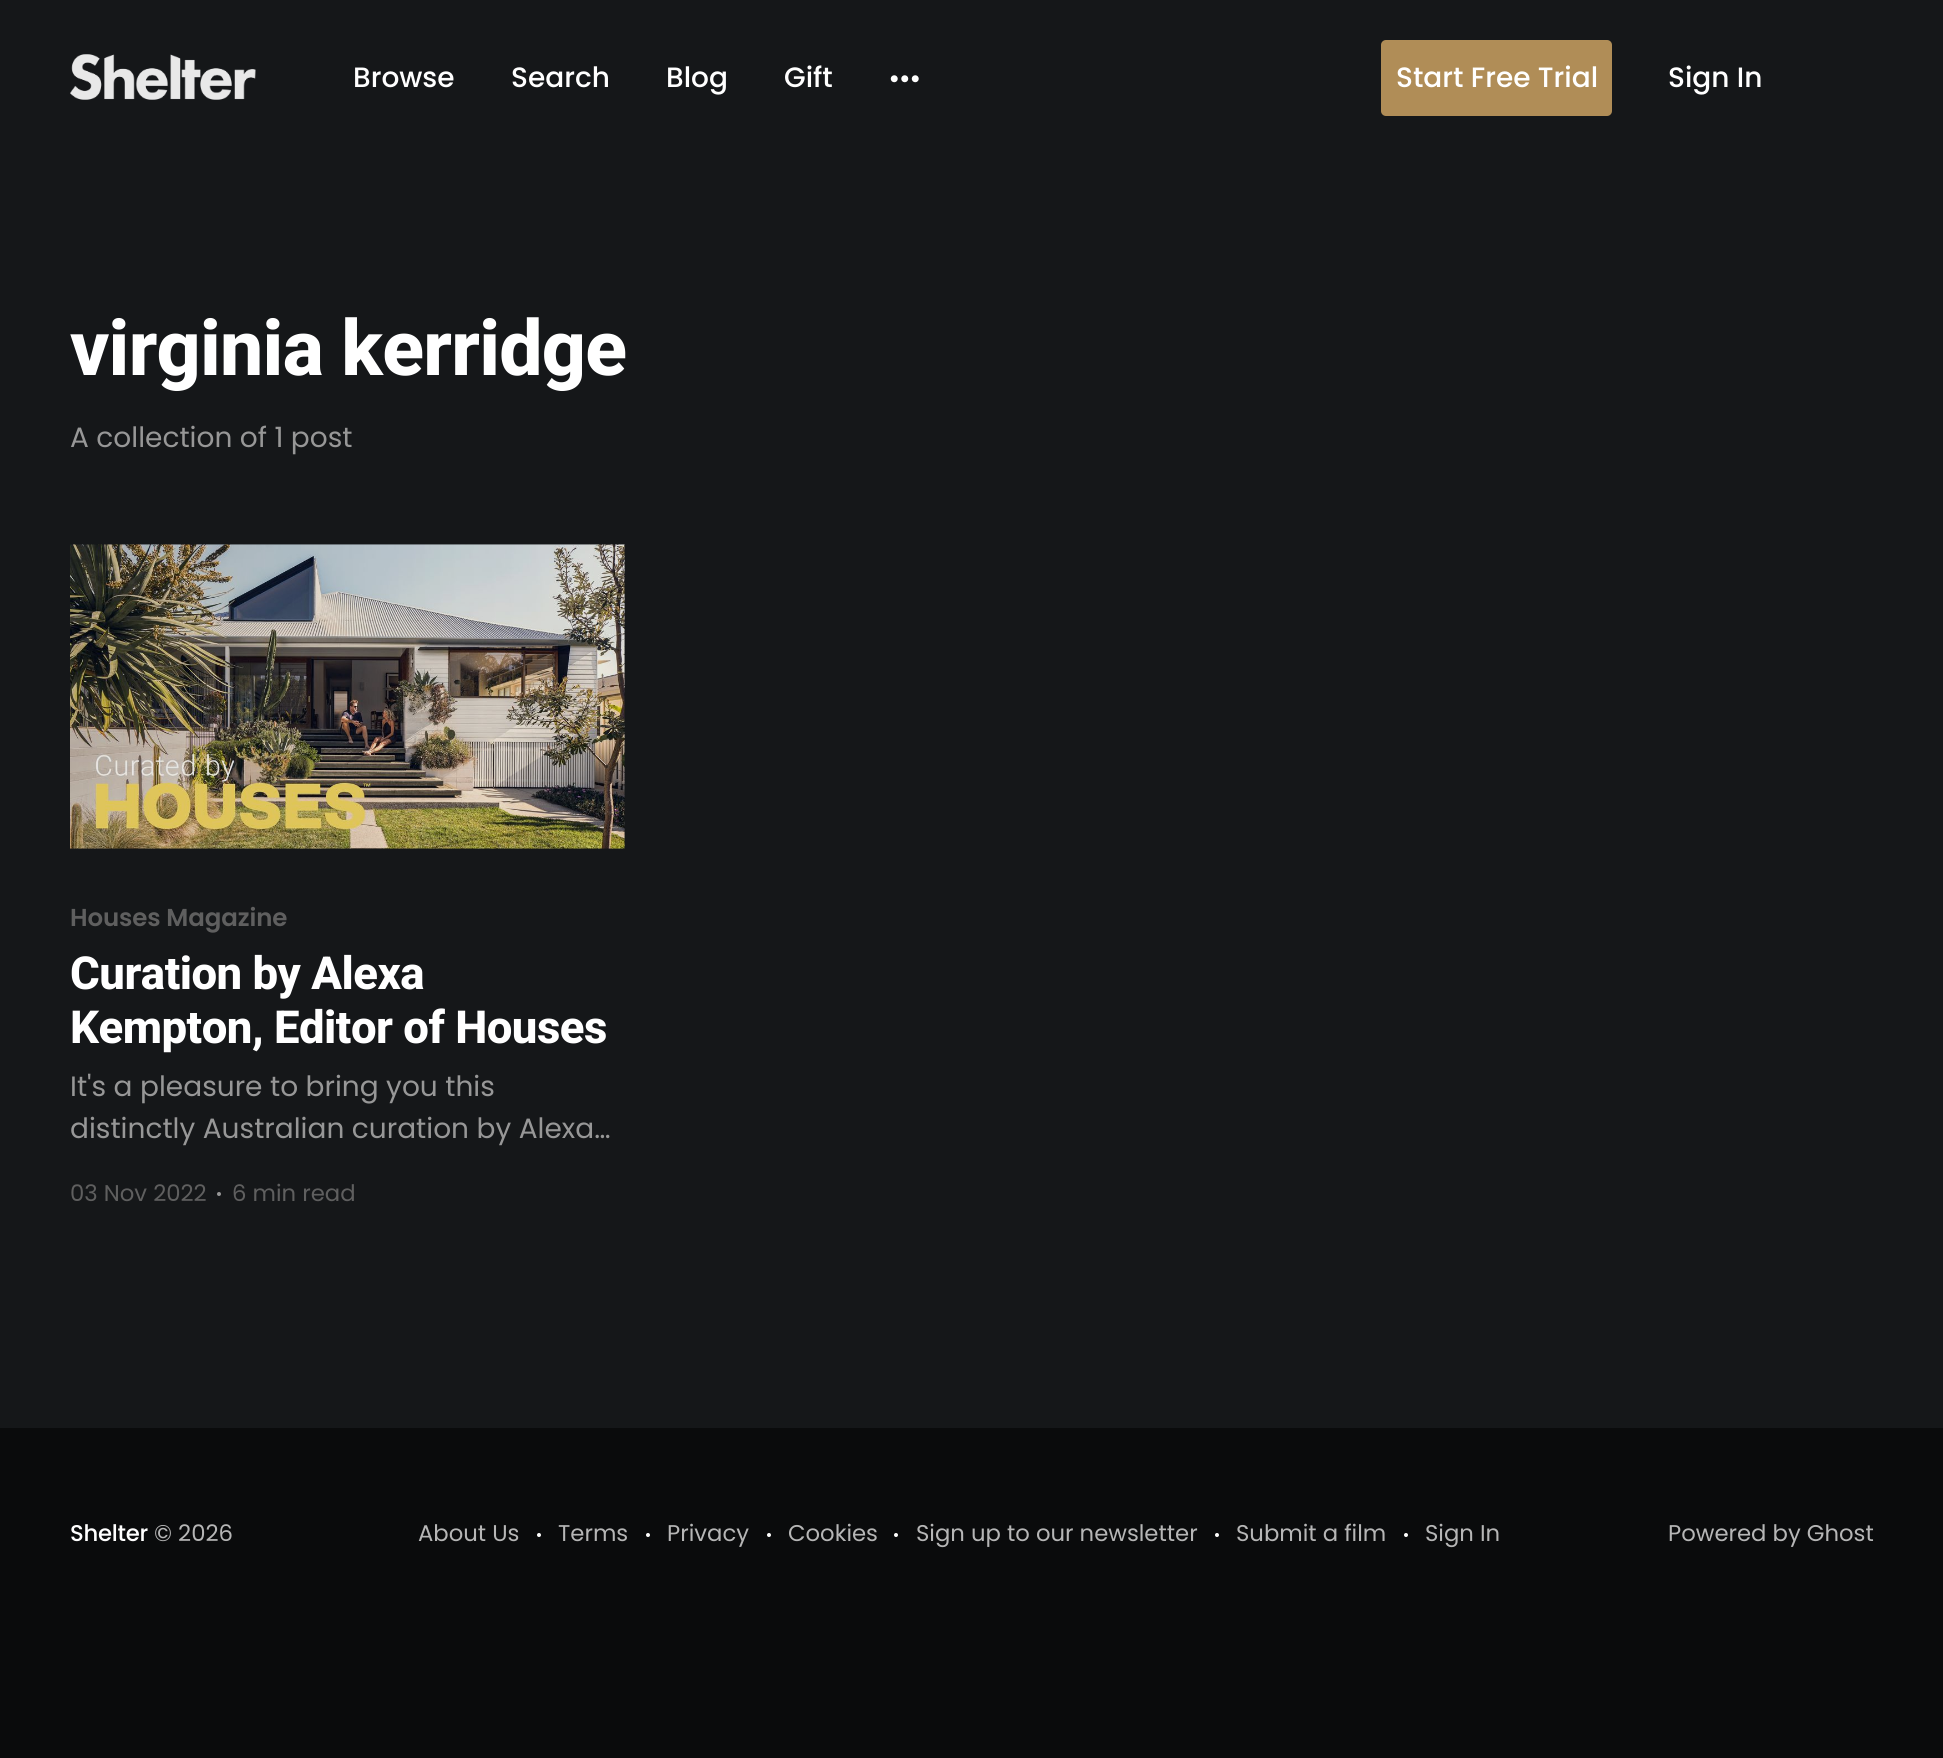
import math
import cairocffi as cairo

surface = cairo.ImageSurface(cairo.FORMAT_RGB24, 1943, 1758)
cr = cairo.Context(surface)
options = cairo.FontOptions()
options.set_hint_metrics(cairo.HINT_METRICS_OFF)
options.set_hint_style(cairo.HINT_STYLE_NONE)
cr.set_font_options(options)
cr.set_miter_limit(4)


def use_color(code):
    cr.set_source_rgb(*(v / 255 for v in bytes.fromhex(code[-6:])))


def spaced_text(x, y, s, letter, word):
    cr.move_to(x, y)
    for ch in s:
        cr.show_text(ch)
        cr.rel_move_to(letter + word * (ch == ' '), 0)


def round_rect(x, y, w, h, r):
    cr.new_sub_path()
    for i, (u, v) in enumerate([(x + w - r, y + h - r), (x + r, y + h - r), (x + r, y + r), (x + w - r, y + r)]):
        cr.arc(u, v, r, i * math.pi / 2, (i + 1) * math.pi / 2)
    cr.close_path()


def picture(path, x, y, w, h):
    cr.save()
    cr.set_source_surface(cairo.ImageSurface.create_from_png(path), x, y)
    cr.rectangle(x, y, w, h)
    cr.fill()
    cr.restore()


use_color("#151719")
cr.paint()
picture("img1.png", 70, 54, 186, 46)
cr.select_font_face("Poppins Medium")
cr.set_font_size(28)
use_color("#ffffff")
cr.move_to(353, 87)
cr.show_text("Browse")
cr.move_to(511, 87)
cr.show_text("Search")
cr.move_to(666, 87)
cr.show_text("Blog")
cr.move_to(784, 87)
cr.show_text("Gift")
picture("img2.png", 890, 75, 29, 8)
use_color("#b08d57")
round_rect(1381, 40, 231, 76, 5)
cr.fill()
use_color("#ffffff")
cr.move_to(1396, 87)
cr.show_text("Start Free Trial")
cr.move_to(1668, 87)
cr.show_text("Sign In")
cr.select_font_face("Roboto ExtraBold")
cr.set_font_size(77)
spaced_text(70, 375, "virginia kerridge", -0.75, 0)
cr.select_font_face("Poppins")
cr.set_font_size(28)
use_color("#979797")
cr.move_to(70, 447)
cr.show_text("A collection of 1 post")
picture("img3.png", 70, 544, 555, 305)
cr.select_font_face("Poppins SemiBold")
cr.set_font_size(24.5)
use_color("#5f5f5f")
spaced_text(70, 926, "Houses Magazine", -0.1, 0)
cr.select_font_face("Roboto ExtraBold")
cr.set_font_size(45.5)
use_color("#ffffff")
spaced_text(70, 989, "Curation by Alexa", -0.5, 0)
spaced_text(70, 1043, "Kempton, Editor of Houses", -0.5, 0)
cr.select_font_face("Poppins")
cr.set_font_size(28)
use_color("#979797")
cr.move_to(70, 1096)
cr.show_text("It's a pleasure to bring you this")
cr.move_to(70, 1138)
cr.show_text("distinctly Australian curation by Alexa…")
cr.set_font_size(22.75)
use_color("#5f5f5f")
cr.move_to(70, 1201)
cr.show_text("03 Nov 2022")
use_color("#979797")
cr.new_path()
cr.arc(219, 1194, 2, 0, 2 * math.pi)
cr.fill()
use_color("#5f5f5f")
cr.move_to(232, 1201)
cr.show_text("6 min read")
use_color("#0a0b0c")
cr.rectangle(0, 1428, 1943, 330)
cr.fill()
cr.select_font_face("Poppins Medium")
use_color("#ffffff")
spaced_text(70, 1541, "Shelter", -0.25, 0)
cr.select_font_face("Poppins")
use_color("#b6b6b6")
cr.move_to(154, 1541)
cr.show_text("© 2026")
cr.move_to(418, 1541)
cr.show_text("About Us")
use_color("#ffffff")
cr.new_path()
cr.arc(539, 1535, 2, 0, 2 * math.pi)
cr.fill()
use_color("#b6b6b6")
cr.move_to(558, 1541)
cr.show_text("Terms")
use_color("#ffffff")
cr.new_path()
cr.arc(648, 1535, 2, 0, 2 * math.pi)
cr.fill()
use_color("#b6b6b6")
cr.move_to(667, 1541)
cr.show_text("Privacy")
use_color("#ffffff")
cr.new_path()
cr.arc(769, 1535, 2, 0, 2 * math.pi)
cr.fill()
use_color("#b6b6b6")
cr.move_to(788, 1541)
cr.show_text("Cookies")
use_color("#ffffff")
cr.new_path()
cr.arc(896, 1535, 2, 0, 2 * math.pi)
cr.fill()
use_color("#b6b6b6")
cr.move_to(916, 1541)
cr.show_text("Sign up to our newsletter")
use_color("#ffffff")
cr.new_path()
cr.arc(1217, 1535, 2, 0, 2 * math.pi)
cr.fill()
use_color("#b6b6b6")
cr.move_to(1236, 1541)
cr.show_text("Submit a film")
use_color("#ffffff")
cr.new_path()
cr.arc(1406, 1535, 2, 0, 2 * math.pi)
cr.fill()
use_color("#b6b6b6")
cr.move_to(1425, 1541)
cr.show_text("Sign In")
cr.move_to(1668, 1541)
cr.show_text("Powered by Ghost")
surface.write_to_png("result.png")
